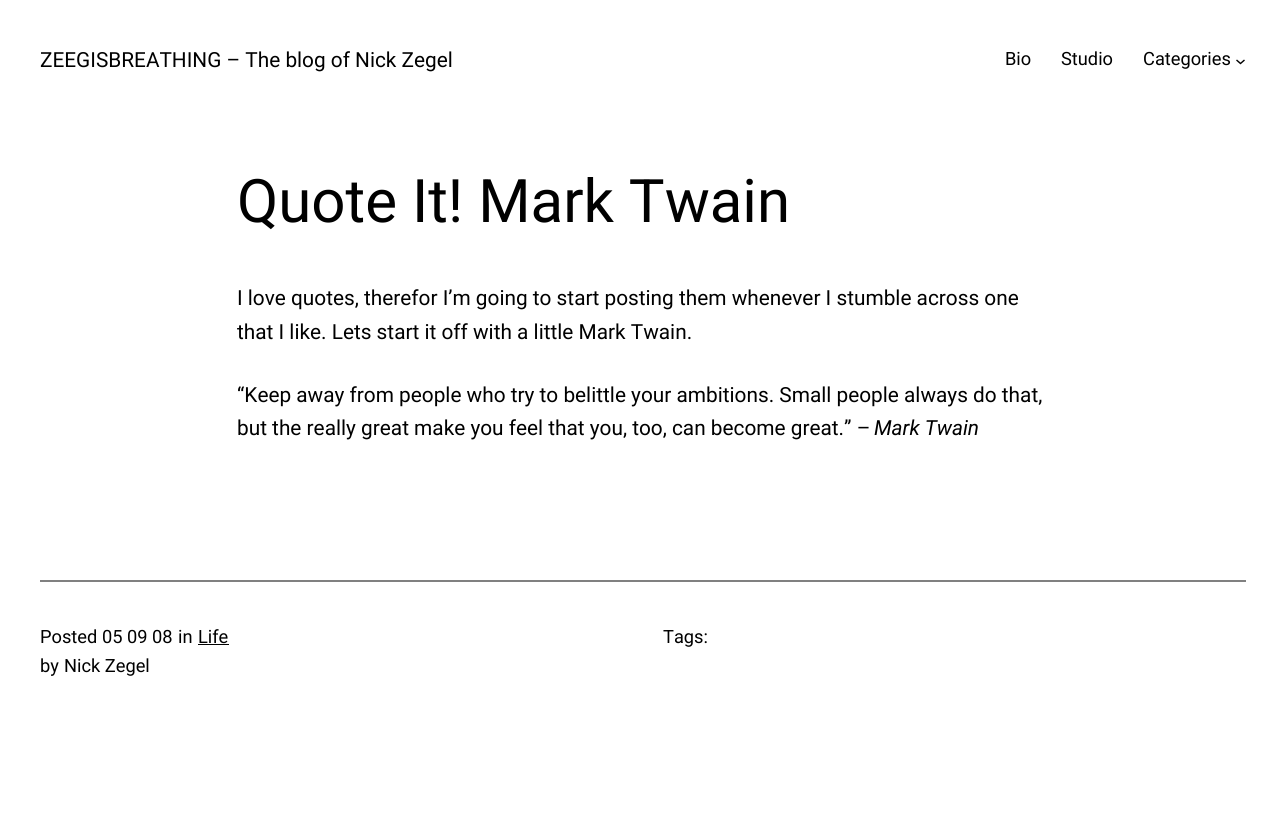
import math
import cairocffi as cairo

surface = cairo.ImageSurface(cairo.FORMAT_RGB24, 1286, 814)
cr = cairo.Context(surface)
options = cairo.FontOptions()
options.set_hint_metrics(cairo.HINT_METRICS_OFF)
options.set_hint_style(cairo.HINT_STYLE_NONE)
cr.set_font_options(options)
cr.set_miter_limit(4)


def use_color(code):
    cr.set_source_rgb(*(v / 255 for v in bytes.fromhex(code[-6:])))


use_color("#ffffff")
cr.paint()
cr.select_font_face("Roboto")
cr.set_font_size(20.8)
use_color("#000000")
cr.move_to(40, 67)
cr.show_text("ZEEGISBREATHING – The blog of Nick Zegel")
cr.set_font_size(18.25)
cr.move_to(1005, 65)
cr.show_text("Bio")
cr.move_to(1061, 65)
cr.show_text("Studio")
cr.move_to(1143, 65)
cr.show_text("Categories")
cr.new_path()
cr.move_to(1236.5, 60)
cr.line_to(1240.5, 63.5)
cr.line_to(1244.5, 60)
cr.set_line_width(1.4)
cr.stroke()
cr.set_font_size(60)
cr.move_to(237, 222)
cr.show_text("Quote It! Mark Twain")
cr.set_font_size(20.8)
cr.move_to(237, 305)
cr.show_text("I love quotes, therefor I’m going to start posting them whenever I stumble across one")
cr.move_to(237, 339)
cr.show_text("that I like. Lets start it off with a little Mark Twain.")
cr.move_to(237, 402)
cr.show_text("“Keep away from people who try to belittle your ambitions. Small people always do that,")
cr.move_to(237, 435)
cr.show_text("but the really great make you feel that you, too, can become great.” –")
cr.select_font_face("Roboto", cairo.FONT_SLANT_ITALIC)
cr.move_to(874, 435)
cr.show_text("Mark Twain")
use_color("#808080")
cr.rectangle(40, 580, 1206, 2)
cr.fill()
cr.select_font_face("Roboto")
cr.set_font_size(18.25)
use_color("#000000")
cr.move_to(40, 643)
cr.show_text("Posted")
cr.move_to(102, 643)
cr.show_text("05 09 08")
cr.move_to(178, 643)
cr.show_text("in")
cr.move_to(198, 643)
cr.show_text("Life")
cr.rectangle(198, 644, 31, 1)
cr.fill()
cr.move_to(40, 672)
cr.show_text("by")
cr.move_to(64, 672)
cr.show_text("Nick Zegel")
cr.move_to(663, 643)
cr.show_text("Tags:")
surface.write_to_png("result.png")
